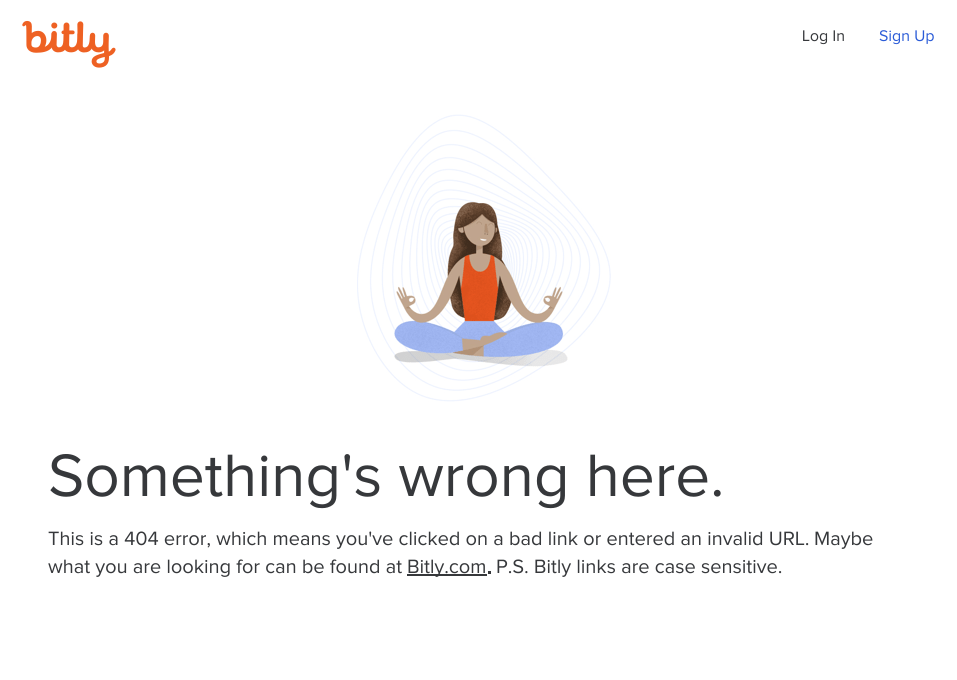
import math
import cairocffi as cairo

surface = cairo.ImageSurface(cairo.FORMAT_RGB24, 957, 680)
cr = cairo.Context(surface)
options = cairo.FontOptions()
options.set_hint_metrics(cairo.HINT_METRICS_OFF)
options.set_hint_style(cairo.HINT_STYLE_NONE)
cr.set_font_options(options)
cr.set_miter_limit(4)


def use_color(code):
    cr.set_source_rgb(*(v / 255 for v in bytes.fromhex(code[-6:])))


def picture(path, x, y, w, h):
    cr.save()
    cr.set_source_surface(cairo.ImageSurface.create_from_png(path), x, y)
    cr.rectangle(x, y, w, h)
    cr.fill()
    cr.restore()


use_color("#ffffff")
cr.paint()
picture("img1.png", 22, 20, 94, 48)
picture("img2.png", 803, 30, 41, 15)
picture("img3.png", 879, 30, 55, 15)
picture("img4.png", 357, 114, 254, 288)
picture("img5.png", 50, 454, 671, 55)
picture("img6.png", 48, 531, 761, 18)
picture("img7.png", 815, 531, 58, 18)
picture("img8.png", 48, 559, 354, 18)
use_color("#36383b")
cr.rectangle(407, 574, 80, 2)
cr.fill()
picture("img9.png", 408, 559, 77, 18)
cr.rectangle(488, 571, 3, 3)
cr.fill()
picture("img10.png", 497, 559, 285, 18)
surface.write_to_png("result.png")
